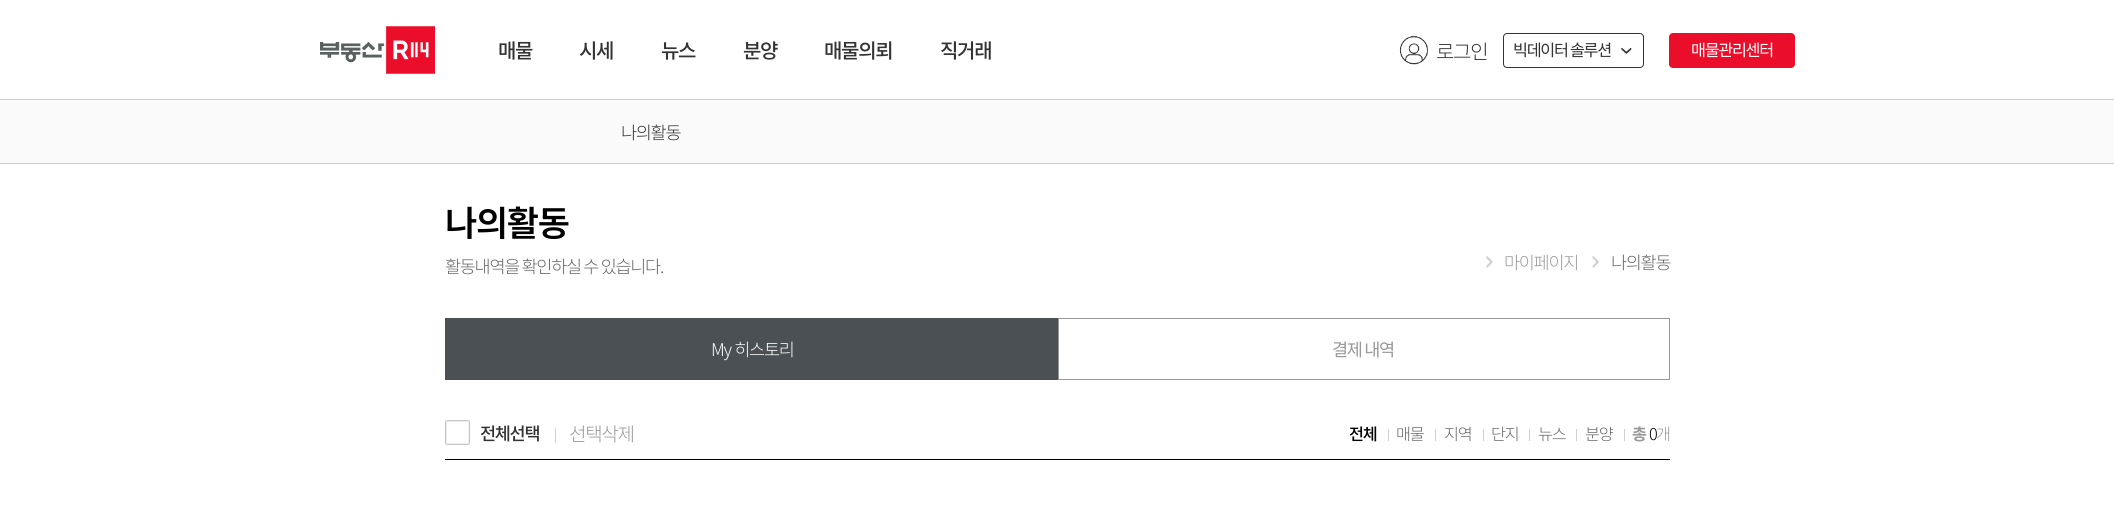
import math
import cairocffi as cairo

surface = cairo.ImageSurface(cairo.FORMAT_RGB24, 2114, 507)
cr = cairo.Context(surface)
options = cairo.FontOptions()
options.set_hint_metrics(cairo.HINT_METRICS_OFF)
options.set_hint_style(cairo.HINT_STYLE_NONE)
cr.set_font_options(options)
cr.set_miter_limit(4)


def use_color(code):
    cr.set_source_rgb(*(v / 255 for v in bytes.fromhex(code[-6:])))


def spaced_text(x, y, s, letter, word):
    cr.move_to(x, y)
    for ch in s:
        cr.show_text(ch)
        cr.rel_move_to(letter + word * (ch == ' '), 0)


def round_rect(x, y, w, h, r):
    cr.new_sub_path()
    for i, (u, v) in enumerate([(x + w - r, y + h - r), (x + r, y + h - r), (x + r, y + r), (x + w - r, y + r)]):
        cr.arc(u, v, r, i * math.pi / 2, (i + 1) * math.pi / 2)
    cr.close_path()


def picture(path, x, y, w, h):
    cr.save()
    cr.set_source_surface(cairo.ImageSurface.create_from_png(path), x, y)
    cr.rectangle(x, y, w, h)
    cr.fill()
    cr.restore()


use_color("#ffffff")
cr.paint()
picture("img1.png", 320, 26, 115, 48)
cr.select_font_face("Noto Sans KR Medium")
cr.set_font_size(20)
use_color("#333333")
spaced_text(498, 58, "매물", -1.3, 0)
spaced_text(579, 58, "시세", -1.3, 0)
spaced_text(661, 58, "뉴스", -1.3, 0)
spaced_text(743, 58, "분양", -1.3, 0)
spaced_text(824, 58, "매물의뢰", -1.3, 0)
spaced_text(940, 58, "직거래", -1.3, 0)
use_color("#fafafa")
cr.rectangle(0, 100, 2114, 63)
cr.fill()
use_color("#cccccc")
cr.rectangle(0, 99, 2114, 1)
cr.fill()
cr.rectangle(0, 163, 2114, 1)
cr.fill()
cr.select_font_face("Noto Sans KR Light")
cr.set_font_size(17.5)
use_color("#333333")
spaced_text(621, 139, "나의활동", -1.3, 0)
picture("img2.png", 1399, 36, 29, 29)
cr.set_font_size(20)
spaced_text(1436, 59, "로그인", -1.3, 0)
round_rect(1503.5, 33.5, 140, 34, 3.5)
cr.set_line_width(1)
cr.stroke()
cr.select_font_face("Noto Sans KR")
cr.set_font_size(16.25)
spaced_text(1513, 56, "빅데이터 솔루션", -1.3, 0)
picture("img3.png", 1621, 47, 11, 7)
use_color("#eb0e2a")
round_rect(1669, 33, 126, 35, 4)
cr.fill()
use_color("#ffffff")
spaced_text(1691, 56, "매물관리센터", -1.3, 0)
cr.select_font_face("Noto Sans KR SemiBold")
cr.set_font_size(35)
use_color("#000000")
spaced_text(445, 236, "나의활동", -1.3, 0)
cr.select_font_face("Noto Sans KR Light")
cr.set_font_size(17.5)
use_color("#666666")
spaced_text(445, 273, "활동내역을 확인하실 수 있습니다.", -1.3, 0)
picture("img4.png", 1486, 256, 7, 12)
picture("img5.png", 1592, 256, 7, 12)
use_color("#999999")
spaced_text(1504, 269, "마이페이지", -1.3, 0)
use_color("#666666")
spaced_text(1611, 269, "나의활동", -1.3, 0)
use_color("#4b5055")
cr.rectangle(445, 318, 613, 62)
cr.fill()
use_color("#ffffff")
spaced_text(711, 356, "My 히스토리", -1.3, 1)
cr.rectangle(1058.5, 318.5, 611, 61)
use_color("#999999")
cr.stroke()
cr.select_font_face("Noto Sans KR")
spaced_text(1332, 356, "결제 내역", -1.3, 0)
picture("img6.png", 445, 420, 25, 25)
cr.select_font_face("Noto Sans KR Medium")
use_color("#333333")
spaced_text(480, 440, "전체선택", -1.3, 0)
use_color("#d1d1d1")
cr.rectangle(555, 428, 1, 15)
cr.fill()
cr.select_font_face("Noto Sans KR Light")
cr.set_font_size(19)
use_color("#999999")
spaced_text(569, 441, "선택삭제", -1.3, 0)
cr.select_font_face("Noto Sans KR Medium")
cr.set_font_size(16.25)
use_color("#000000")
spaced_text(1349, 440, "전체", -1.3, 0)
use_color("#d1d1d1")
cr.rectangle(1388, 429, 1, 12)
cr.fill()
cr.select_font_face("Noto Sans KR Light")
use_color("#666666")
spaced_text(1396, 440, "매물", -1.3, 0)
use_color("#d1d1d1")
cr.rectangle(1435, 429, 1, 12)
cr.fill()
use_color("#666666")
spaced_text(1444, 440, "지역", -1.3, 0)
use_color("#d1d1d1")
cr.rectangle(1483, 429, 1, 12)
cr.fill()
use_color("#666666")
spaced_text(1491, 440, "단지", -1.3, 0)
use_color("#d1d1d1")
cr.rectangle(1529, 429, 1, 12)
cr.fill()
use_color("#666666")
spaced_text(1538, 440, "뉴스", -1.3, 0)
use_color("#d1d1d1")
cr.rectangle(1576, 429, 1, 12)
cr.fill()
use_color("#666666")
spaced_text(1585, 440, "분양", -1.3, 0)
use_color("#d1d1d1")
cr.rectangle(1624, 429, 1, 12)
cr.fill()
cr.select_font_face("Noto Sans KR", cairo.FONT_SLANT_NORMAL, cairo.FONT_WEIGHT_BOLD)
use_color("#999999")
spaced_text(1632, 440, "총", -1.3, 0)
cr.select_font_face("Noto Sans KR Light")
use_color("#000000")
spaced_text(1649, 440, "0", -1.3, 0)
use_color("#999999")
spaced_text(1656, 440, "개", -1.3, 0)
use_color("#000000")
cr.rectangle(445, 459, 1225, 1)
cr.fill()
surface.write_to_png("result.png")
